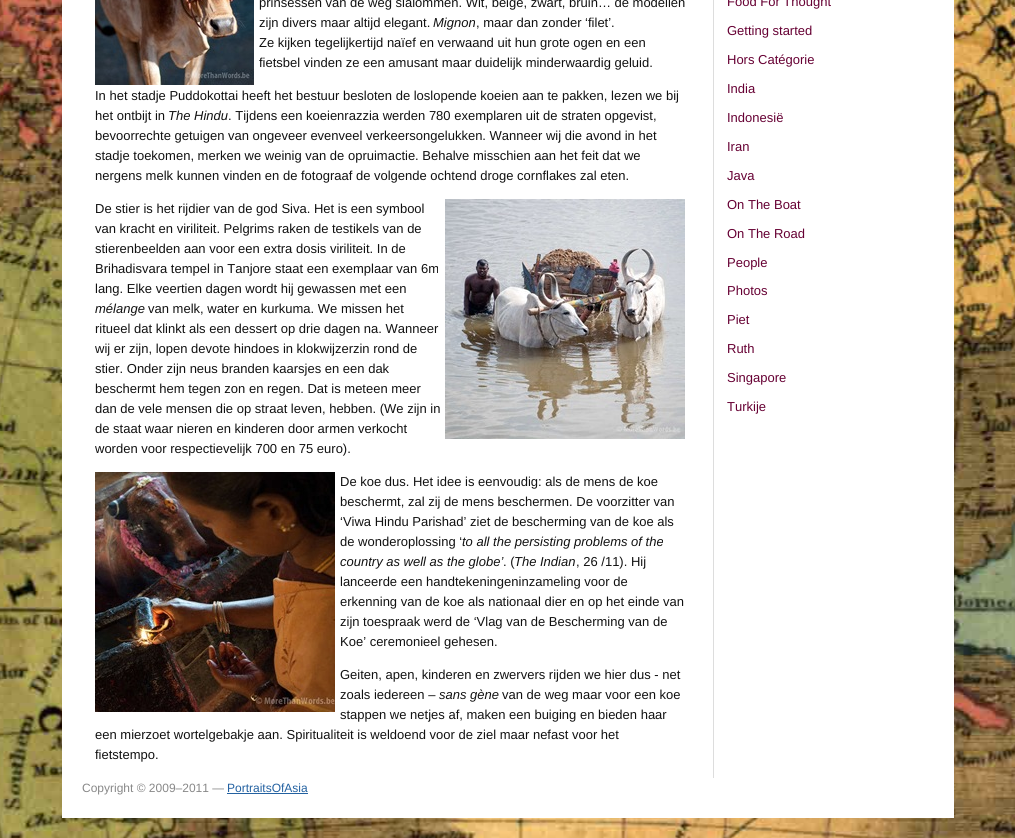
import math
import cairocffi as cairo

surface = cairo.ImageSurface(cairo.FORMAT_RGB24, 1015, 838)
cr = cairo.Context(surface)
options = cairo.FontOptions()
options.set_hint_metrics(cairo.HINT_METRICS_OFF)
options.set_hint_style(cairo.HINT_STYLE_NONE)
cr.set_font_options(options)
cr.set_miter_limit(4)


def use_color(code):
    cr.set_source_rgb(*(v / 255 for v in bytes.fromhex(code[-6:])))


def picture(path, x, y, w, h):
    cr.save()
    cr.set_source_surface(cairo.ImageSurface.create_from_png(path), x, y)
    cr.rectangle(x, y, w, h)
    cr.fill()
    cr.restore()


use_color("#ffffff")
cr.paint()
picture("img1.png", 0, 0, 1015, 838)
use_color("#ffffff")
cr.rectangle(62, 0, 892, 818)
cr.fill()
use_color("#dddddd")
cr.rectangle(713, 0, 1, 778)
cr.fill()
picture("img2.png", 95, 0, 159, 85)
cr.select_font_face("Liberation Sans")
cr.set_font_size(13)
use_color("#111111")
cr.move_to(259, 7)
cr.show_text("prinsessen van de weg slalommen. Wit, beige, zwart, bruin… de modellen")
cr.move_to(259, 27)
cr.show_text("zijn divers maar altijd elegant.")
cr.select_font_face("Liberation Sans", cairo.FONT_SLANT_ITALIC)
cr.move_to(433, 27)
cr.show_text("Mignon")
cr.select_font_face("Liberation Sans")
cr.move_to(476, 27)
cr.show_text(", maar dan zonder ‘filet’.")
cr.move_to(259, 47)
cr.show_text("Ze kijken tegelijkertijd naïef en verwaand uit hun grote ogen en een")
cr.move_to(259, 67)
cr.show_text("fietsbel vinden ze een amusant maar duidelijk minderwaardig geluid.")
cr.move_to(95, 100)
cr.show_text("In het stadje Puddokottai heeft het bestuur besloten de loslopende koeien aan te pakken, lezen we bij")
cr.move_to(95, 120)
cr.show_text("het ontbijt in")
cr.select_font_face("Liberation Sans", cairo.FONT_SLANT_ITALIC)
cr.move_to(168, 120)
cr.show_text("The Hindu")
cr.select_font_face("Liberation Sans")
cr.move_to(228, 120)
cr.show_text(". Tijdens een koeienrazzia werden 780 exemplaren uit de straten opgevist,")
cr.move_to(95, 140)
cr.show_text("bevoorrechte getuigen van ongeveer evenveel verkeersongelukken. Wanneer wij die avond in het")
cr.move_to(95, 160)
cr.show_text("stadje toekomen, merken we weinig van de opruimactie. Behalve misschien aan het feit dat we")
cr.move_to(95, 180)
cr.show_text("nergens melk kunnen vinden en de fotograaf de volgende ochtend droge cornflakes zal eten.")
cr.move_to(95, 213)
cr.show_text("De stier is het rijdier van de god Siva. Het is een symbool")
picture("img3.png", 445, 199, 240, 240)
cr.move_to(95, 233)
cr.show_text("van kracht en viriliteit. Pelgrims raken de testikels van de")
cr.move_to(95, 253)
cr.show_text("stierenbeelden aan voor een extra dosis viriliteit. In de")
cr.move_to(95, 273)
cr.show_text("Brihadisvara tempel in Tanjore staat een exemplaar van 6m")
cr.move_to(95, 293)
cr.show_text("lang. Elke veertien dagen wordt hij gewassen met een")
cr.select_font_face("Liberation Sans", cairo.FONT_SLANT_ITALIC)
cr.move_to(95, 313)
cr.show_text("mélange")
cr.select_font_face("Liberation Sans")
cr.move_to(148, 313)
cr.show_text("van melk, water en kurkuma. We missen het")
cr.move_to(95, 333)
cr.show_text("ritueel dat klinkt als een dessert op drie dagen na. Wanneer")
cr.move_to(95, 353)
cr.show_text("wij er zijn, lopen devote hindoes in klokwijzerzin rond de")
cr.move_to(95, 373)
cr.show_text("stier. Onder zijn neus branden kaarsjes en een dak")
cr.move_to(95, 393)
cr.show_text("beschermt hem tegen zon en regen. Dat is meteen meer")
cr.move_to(95, 413)
cr.show_text("dan de vele mensen die op straat leven, hebben. (We zijn in")
cr.move_to(95, 433)
cr.show_text("de staat waar nieren en kinderen door armen verkocht")
cr.move_to(95, 453)
cr.show_text("worden voor respectievelijk 700 en 75 euro).")
picture("img4.png", 95, 472, 240, 240)
cr.move_to(340, 486)
cr.show_text("De koe dus. Het idee is eenvoudig: als de mens de koe")
cr.move_to(340, 506)
cr.show_text("beschermt, zal zij de mens beschermen. De voorzitter van")
cr.move_to(340, 526)
cr.show_text("‘Viwa Hindu Parishad’ ziet de bescherming van de koe als")
cr.move_to(340, 546)
cr.show_text("de wonderoplossing ‘")
cr.select_font_face("Liberation Sans", cairo.FONT_SLANT_ITALIC)
cr.move_to(462, 546)
cr.show_text("to all the persisting problems of the")
cr.move_to(340, 566)
cr.show_text("country as well as the globe’")
cr.select_font_face("Liberation Sans")
cr.move_to(503, 566)
cr.show_text(". (")
cr.select_font_face("Liberation Sans", cairo.FONT_SLANT_ITALIC)
cr.move_to(514, 566)
cr.show_text("The Indian")
cr.select_font_face("Liberation Sans")
cr.move_to(576, 566)
cr.show_text(", 26 /11). Hij")
cr.move_to(340, 586)
cr.show_text("lanceerde een handtekeningeninzameling voor de")
cr.move_to(340, 606)
cr.show_text("erkenning van de koe als nationaal dier en op het einde van")
cr.move_to(340, 626)
cr.show_text("zijn toespraak werd de ‘Vlag van de Bescherming van de")
cr.move_to(340, 646)
cr.show_text("Koe’ ceremonieel gehesen.")
cr.move_to(340, 679)
cr.show_text("Geiten, apen, kinderen en zwervers rijden we hier dus - net")
cr.move_to(340, 699)
cr.show_text("zoals iedereen –")
cr.select_font_face("Liberation Sans", cairo.FONT_SLANT_ITALIC)
cr.move_to(439, 699)
cr.show_text("sans gène")
cr.select_font_face("Liberation Sans")
cr.move_to(502, 699)
cr.show_text("van de weg maar voor een koe")
cr.move_to(340, 719)
cr.show_text("stappen we netjes af, maken een buiging en bieden haar")
cr.move_to(95, 739)
cr.show_text("een mierzoet wortelgebakje aan. Spiritualiteit is weldoend voor de ziel maar nefast voor het")
cr.move_to(95, 759)
cr.show_text("fietstempo.")
use_color("#660033")
cr.move_to(727, 6)
cr.show_text("Food For Thought")
cr.move_to(727, 35)
cr.show_text("Getting started")
cr.move_to(727, 64)
cr.show_text("Hors Catégorie")
cr.move_to(727, 93)
cr.show_text("India")
cr.move_to(727, 122)
cr.show_text("Indonesië")
cr.move_to(727, 151)
cr.show_text("Iran")
cr.move_to(727, 180)
cr.show_text("Java")
cr.move_to(727, 209)
cr.show_text("On The Boat")
cr.move_to(727, 238)
cr.show_text("On The Road")
cr.move_to(727, 267)
cr.show_text("People")
cr.move_to(727, 295)
cr.show_text("Photos")
cr.move_to(727, 324)
cr.show_text("Piet")
cr.move_to(727, 353)
cr.show_text("Ruth")
cr.move_to(727, 382)
cr.show_text("Singapore")
cr.move_to(727, 411)
cr.show_text("Turkije")
cr.set_font_size(12)
use_color("#888888")
cr.move_to(82, 792)
cr.show_text("Copyright © 2009–2011 —")
use_color("#2361a1")
cr.move_to(227, 792)
cr.show_text("PortraitsOfAsia")
cr.rectangle(227, 793, 81, 1)
cr.fill()
surface.write_to_png("result.png")
